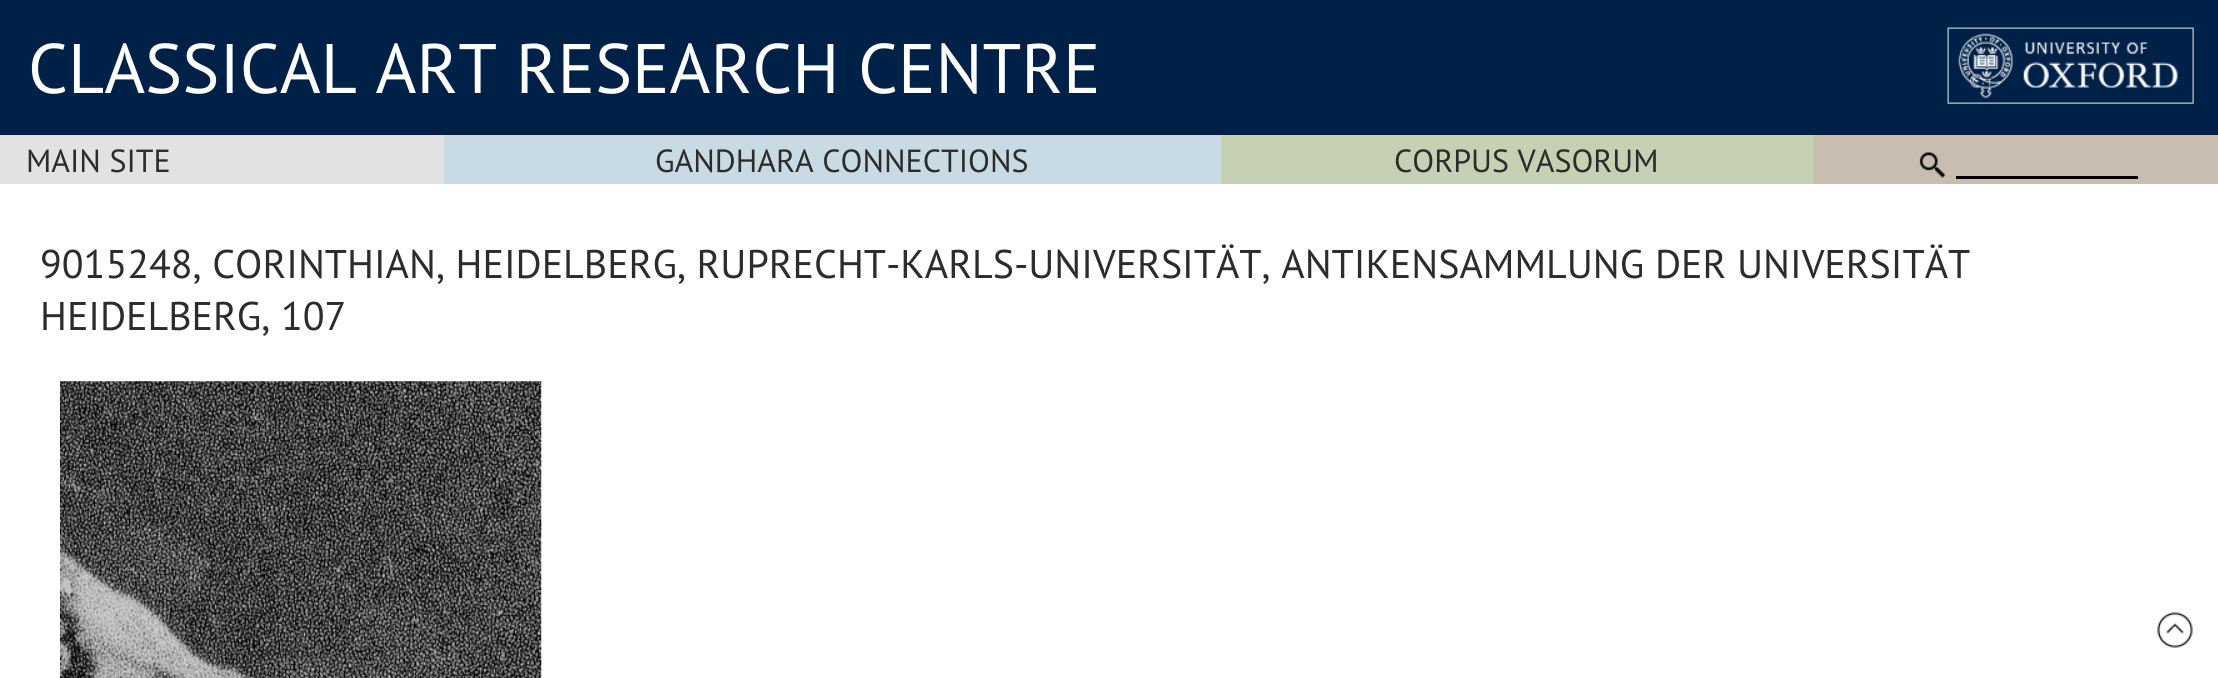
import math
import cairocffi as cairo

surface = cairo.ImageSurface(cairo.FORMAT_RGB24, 2218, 678)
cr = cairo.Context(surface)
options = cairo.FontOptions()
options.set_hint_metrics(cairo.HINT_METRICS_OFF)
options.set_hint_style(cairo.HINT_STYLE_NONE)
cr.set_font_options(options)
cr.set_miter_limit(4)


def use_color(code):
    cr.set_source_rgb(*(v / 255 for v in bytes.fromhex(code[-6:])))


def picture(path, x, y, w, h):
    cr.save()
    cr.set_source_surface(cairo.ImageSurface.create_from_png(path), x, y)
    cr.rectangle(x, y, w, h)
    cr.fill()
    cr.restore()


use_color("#ffffff")
cr.paint()
use_color("#002147")
cr.rectangle(0, 0, 2218, 135)
cr.fill()
cr.select_font_face("PT Sans")
cr.set_font_size(70)
use_color("#ffffff")
cr.move_to(28, 93)
cr.show_text("CLASSICAL ART RESEARCH CENTRE")
picture("img1.png", 1947, 27, 247, 77)
use_color("#e2e2e2")
cr.rectangle(0, 135, 444, 49)
cr.fill()
cr.set_font_size(32)
use_color("#2c2c2c")
cr.move_to(26, 172)
cr.show_text("MAIN SITE")
use_color("#c8dbe5")
cr.rectangle(444, 135, 777, 49)
cr.fill()
use_color("#2c2c2c")
cr.move_to(655, 172)
cr.show_text("GANDHARA CONNECTIONS")
use_color("#c5d1b2")
cr.rectangle(1221, 135, 593, 49)
cr.fill()
use_color("#2c2c2c")
cr.move_to(1394, 172)
cr.show_text("CORPUS VASORUM")
use_color("#c8bdae")
cr.rectangle(1814, 135, 404, 49)
cr.fill()
picture("img2.png", 1919, 152, 27, 26)
use_color("#000000")
cr.rectangle(1956, 176, 182, 3)
cr.fill()
cr.set_font_size(40)
use_color("#2c2c2c")
cr.move_to(40, 278)
cr.show_text("9015248, CORINTHIAN, HEIDELBERG, RUPRECHT-KARLS-UNIVERSITÄT, ANTIKENSAMMLUNG DER UNIVERSITÄT")
cr.move_to(40, 330)
cr.show_text("HEIDELBERG, 107")
picture("img3.png", 60, 381, 482, 297)
picture("img4.png", 2157, 612, 36, 36)
surface.write_to_png("result.png")
